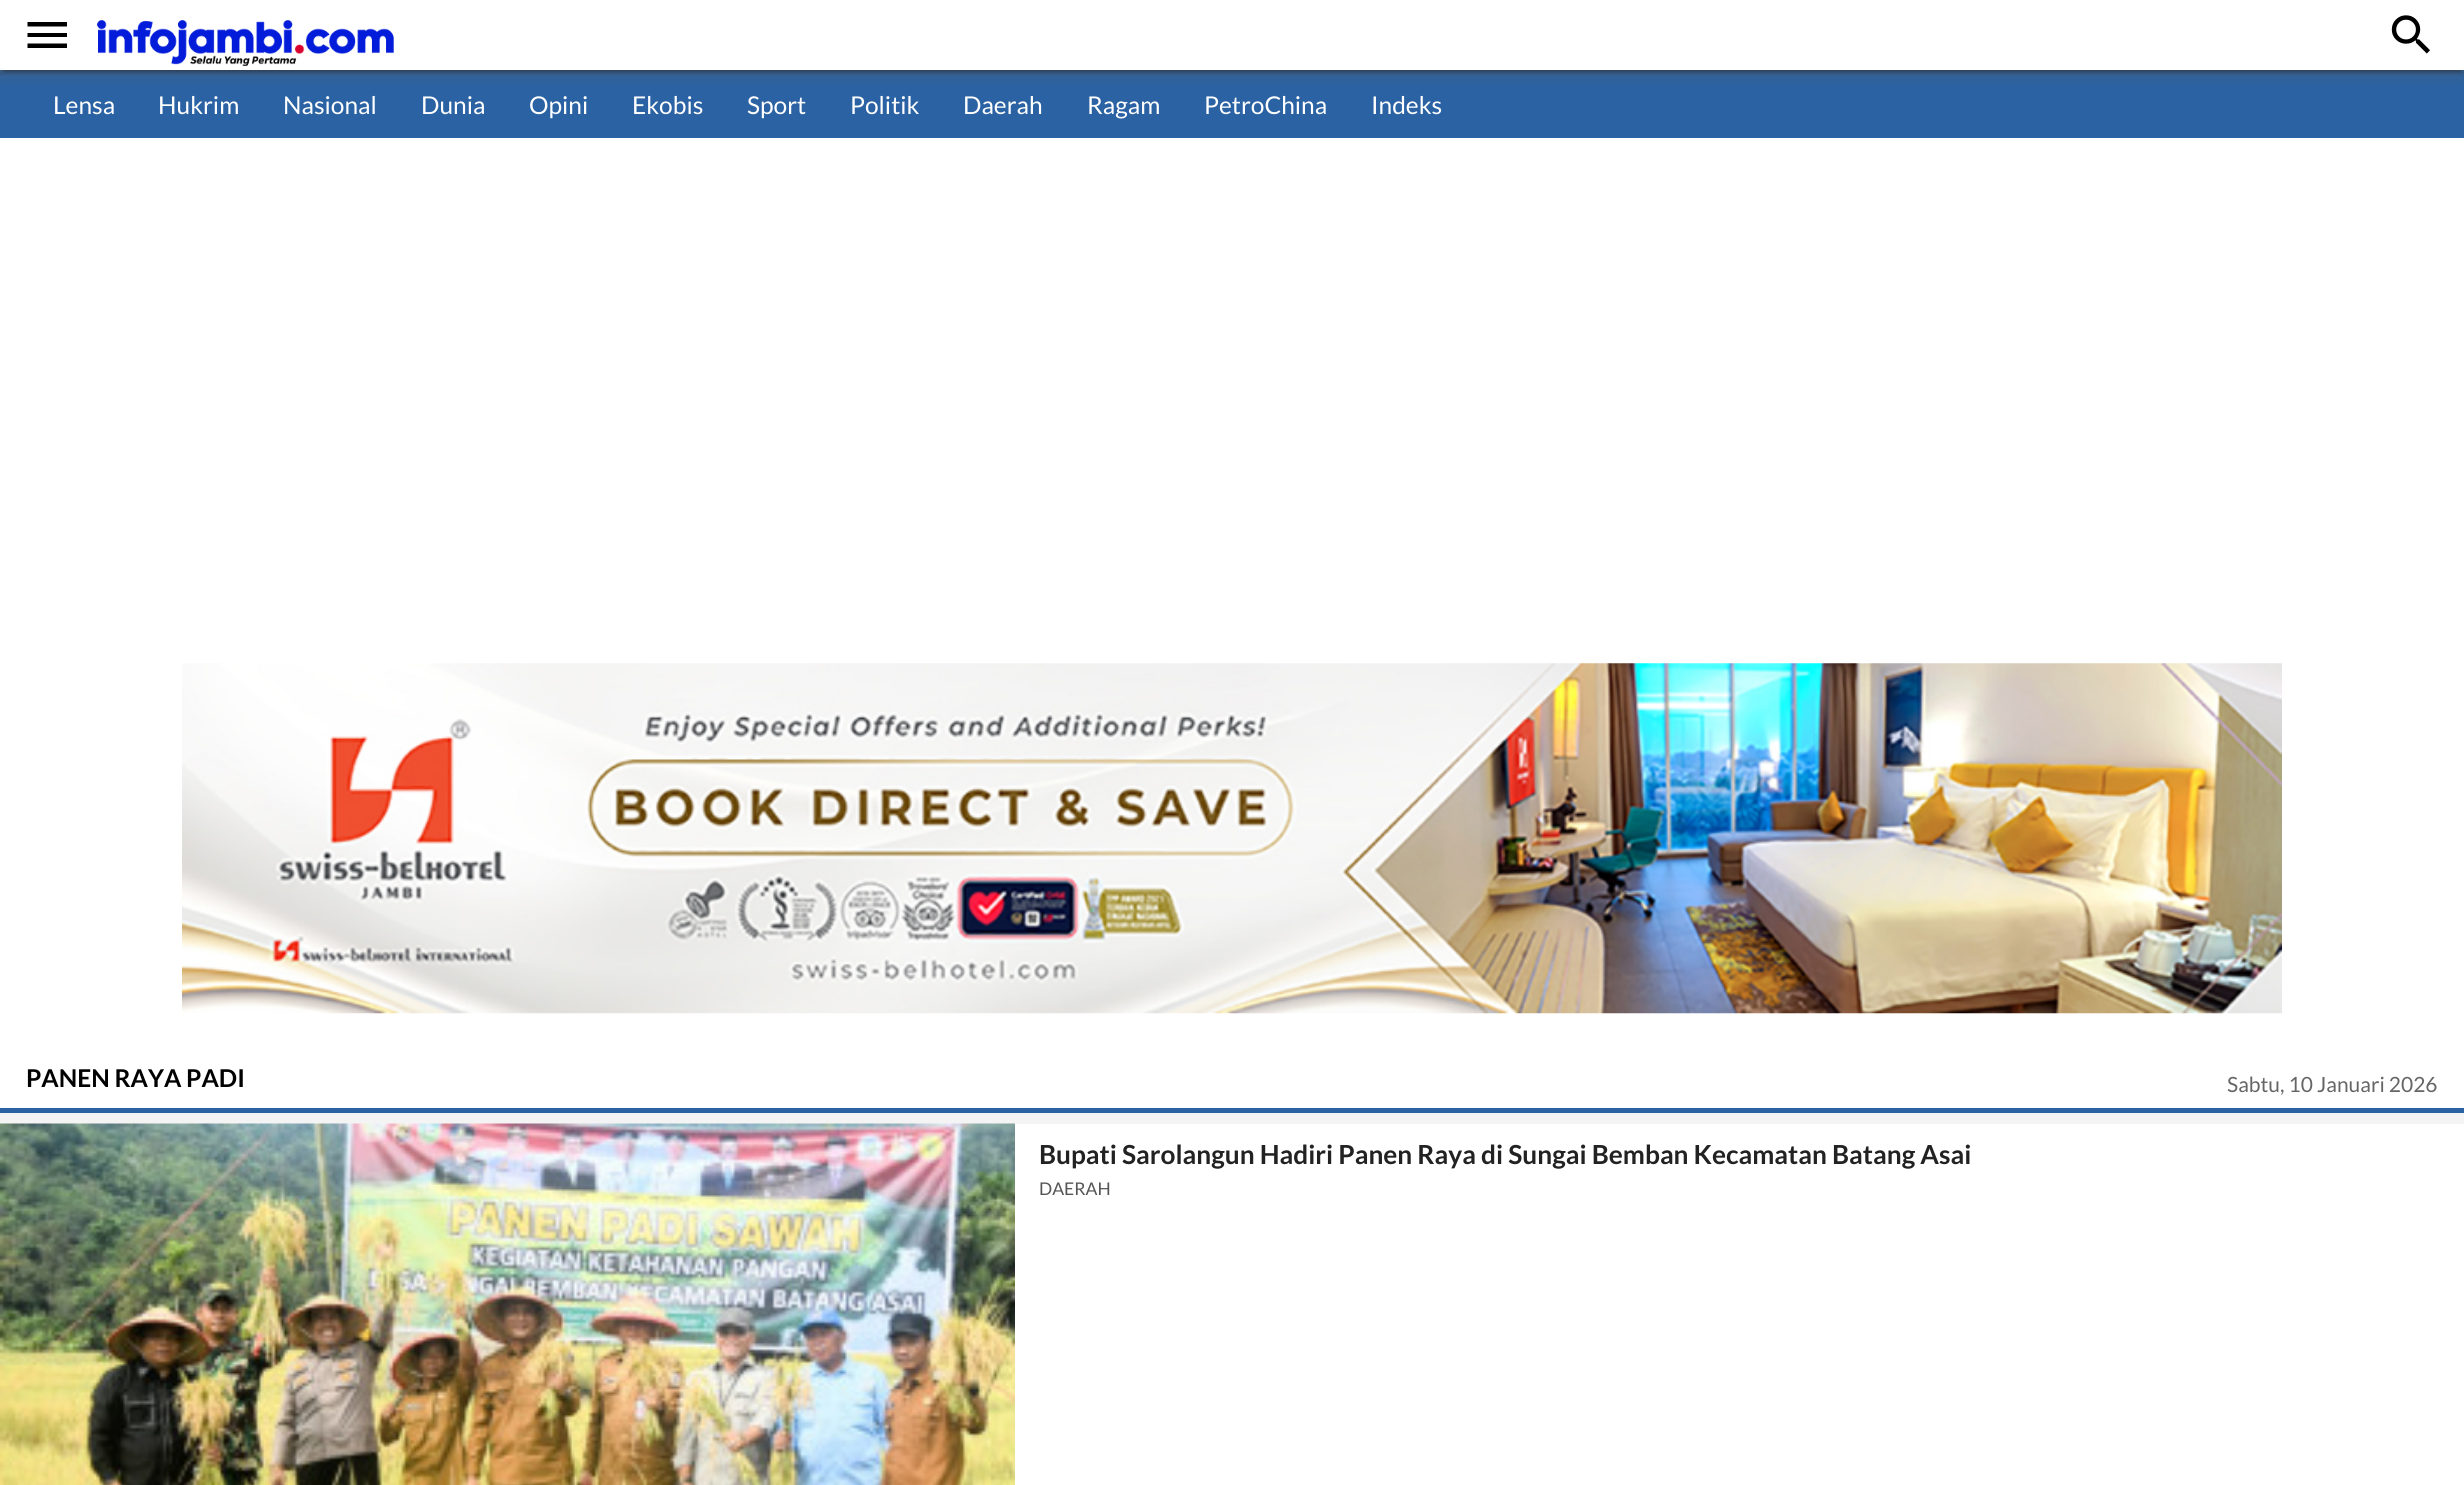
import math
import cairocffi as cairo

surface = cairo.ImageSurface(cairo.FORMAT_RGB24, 2464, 1485)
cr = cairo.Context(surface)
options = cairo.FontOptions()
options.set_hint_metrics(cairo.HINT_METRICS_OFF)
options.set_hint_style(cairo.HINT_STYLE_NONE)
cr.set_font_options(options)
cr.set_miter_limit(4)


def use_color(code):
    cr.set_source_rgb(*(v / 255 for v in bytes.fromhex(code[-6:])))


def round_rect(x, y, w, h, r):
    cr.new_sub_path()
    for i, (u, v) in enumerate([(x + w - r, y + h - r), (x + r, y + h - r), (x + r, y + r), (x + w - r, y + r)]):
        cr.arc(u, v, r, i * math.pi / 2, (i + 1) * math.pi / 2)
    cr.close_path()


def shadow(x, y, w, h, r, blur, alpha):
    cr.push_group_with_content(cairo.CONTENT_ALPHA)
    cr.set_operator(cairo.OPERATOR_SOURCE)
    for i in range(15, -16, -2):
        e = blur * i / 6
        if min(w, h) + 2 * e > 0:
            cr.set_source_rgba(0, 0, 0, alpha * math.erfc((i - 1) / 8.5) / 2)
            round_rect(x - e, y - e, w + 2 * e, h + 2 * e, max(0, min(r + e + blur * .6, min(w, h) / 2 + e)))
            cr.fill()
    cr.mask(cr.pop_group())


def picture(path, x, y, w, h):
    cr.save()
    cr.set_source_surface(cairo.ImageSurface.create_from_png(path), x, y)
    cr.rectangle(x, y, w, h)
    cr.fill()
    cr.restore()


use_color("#ffffff")
cr.paint()
use_color("#2a62a3")
cr.rectangle(0, 70, 2464, 68)
cr.fill()
cr.save()
cr.rectangle(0, 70, 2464, 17)
cr.clip()
use_color("#616161")
shadow(-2, -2, 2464, 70, 0, 9.5, 1)
cr.restore()
cr.save()
cr.rectangle(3, 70, 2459, 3)
cr.clip()
use_color("#000000")
shadow(4, 9, 2457, 63, 0, 1, 0.2)
cr.restore()
cr.save()
cr.rectangle(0, 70, 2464, 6)
cr.clip()
use_color("#000000")
shadow(0, 4, 2464, 70, 0, 2, 0.14)
cr.restore()
use_color("#000000")
cr.new_path()
cr.move_to(27.5, 22)
cr.line_to(67, 22)
cr.line_to(67, 26.5)
cr.line_to(27.5, 26.5)
cr.close_path()
cr.move_to(27.5, 37)
cr.line_to(27.5, 33)
cr.line_to(67, 33)
cr.line_to(67, 37)
cr.close_path()
cr.move_to(27.5, 48)
cr.line_to(27.5, 43.5)
cr.line_to(67, 43.5)
cr.line_to(67, 48)
cr.close_path()
cr.fill()
picture("img1.png", 97, 20, 297, 46)
picture("img2.png", 2391, 15, 39, 39)
cr.select_font_face("Lato")
cr.set_font_size(24.5)
use_color("#ffffff")
cr.move_to(53, 114)
cr.show_text("Lensa")
cr.move_to(158, 114)
cr.show_text("Hukrim")
cr.move_to(283, 114)
cr.show_text("Nasional")
cr.move_to(421, 114)
cr.show_text("Dunia")
cr.move_to(529, 114)
cr.show_text("Opini")
cr.move_to(632, 114)
cr.show_text("Ekobis")
cr.move_to(747, 114)
cr.show_text("Sport")
cr.move_to(850, 114)
cr.show_text("Politik")
cr.move_to(963, 114)
cr.show_text("Daerah")
cr.move_to(1087, 114)
cr.show_text("Ragam")
cr.move_to(1204, 114)
cr.show_text("PetroChina")
cr.move_to(1371, 114)
cr.show_text("Indeks")
picture("img3.png", 182, 663, 2100, 351)
cr.select_font_face("Lato", cairo.FONT_SLANT_NORMAL, cairo.FONT_WEIGHT_BOLD)
use_color("#000000")
cr.move_to(26, 1087)
cr.show_text("PANEN RAYA PADI")
cr.select_font_face("Lato")
cr.set_font_size(21)
use_color("#666666")
cr.move_to(2227, 1092)
cr.show_text("Sabtu, 10 Januari 2026")
use_color("#2a62a3")
cr.rectangle(0, 1108, 2464, 5)
cr.fill()
use_color("#f4f4f4")
cr.rectangle(0, 1113, 2464, 11)
cr.fill()
picture("img4.png", 0, 1123, 1015, 362)
cr.select_font_face("Lato", cairo.FONT_SLANT_NORMAL, cairo.FONT_WEIGHT_BOLD)
cr.set_font_size(26.25)
use_color("#222222")
cr.move_to(1039, 1164)
cr.show_text("Bupati Sarolangun Hadiri Panen Raya di Sungai Bemban Kecamatan Batang Asai")
cr.select_font_face("Lato")
cr.set_font_size(17.5)
use_color("#555555")
cr.move_to(1039, 1195)
cr.show_text("DAERAH")
use_color("#fbfbfb")
cr.rectangle(2436, 1370, 2, 2)
cr.fill()
surface.write_to_png("result.png")
